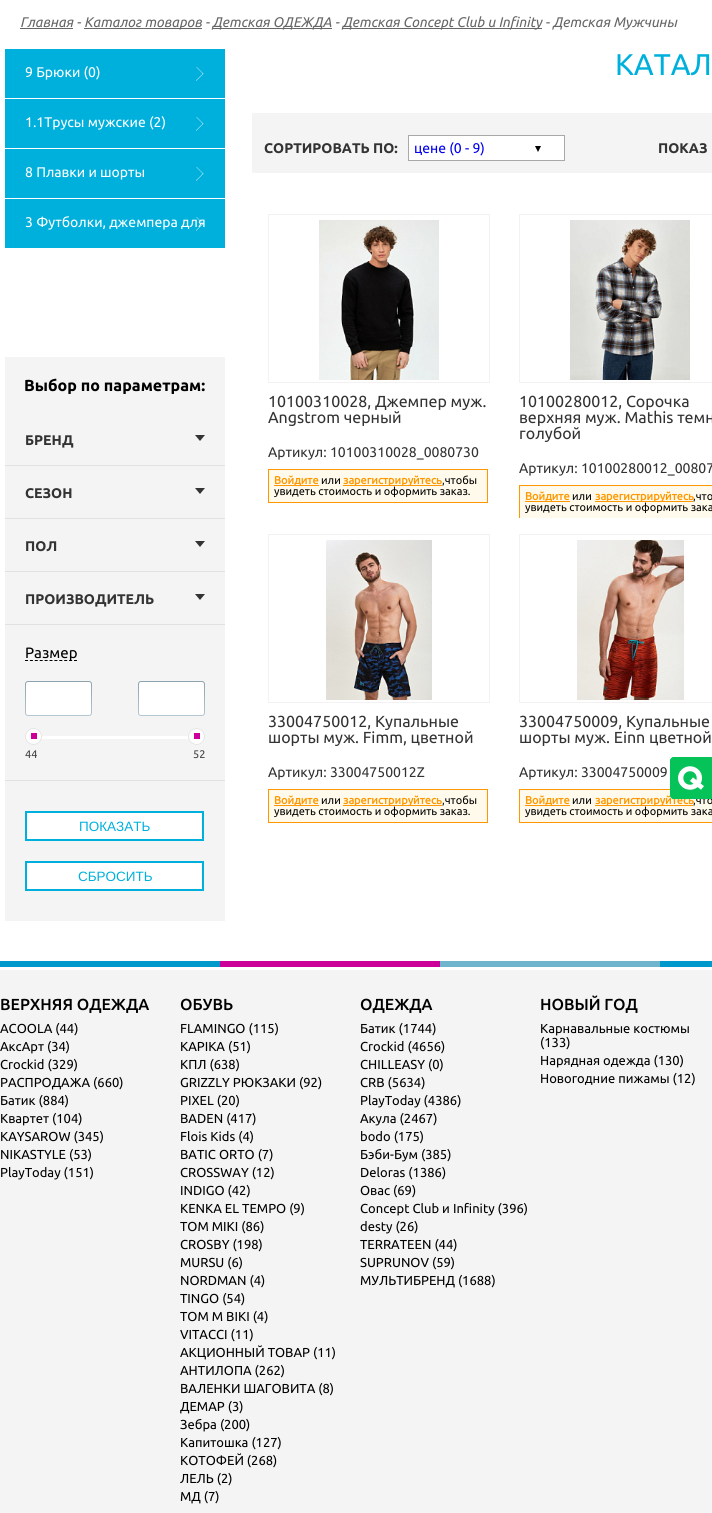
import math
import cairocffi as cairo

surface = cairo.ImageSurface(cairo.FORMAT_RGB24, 712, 1513)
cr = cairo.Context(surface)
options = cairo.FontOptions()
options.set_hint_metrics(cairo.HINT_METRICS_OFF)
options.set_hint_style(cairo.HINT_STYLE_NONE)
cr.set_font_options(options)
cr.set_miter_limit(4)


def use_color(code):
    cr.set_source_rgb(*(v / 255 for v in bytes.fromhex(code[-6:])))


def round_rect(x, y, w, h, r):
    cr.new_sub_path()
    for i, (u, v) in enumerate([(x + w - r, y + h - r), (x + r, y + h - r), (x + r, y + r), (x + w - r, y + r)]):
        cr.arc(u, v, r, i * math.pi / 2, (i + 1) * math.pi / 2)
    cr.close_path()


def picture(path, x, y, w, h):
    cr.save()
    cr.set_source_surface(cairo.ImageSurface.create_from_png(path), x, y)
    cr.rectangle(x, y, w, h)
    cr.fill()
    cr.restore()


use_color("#ffffff")
cr.paint()
cr.select_font_face("Ubuntu", cairo.FONT_SLANT_ITALIC)
cr.set_font_size(14)
use_color("#666666")
cr.move_to(20, 27)
cr.show_text("Главная -")
cr.rectangle(20, 28, 53, 1)
cr.fill()
cr.rectangle(84, 28, 118, 1)
cr.fill()
cr.move_to(84, 27)
cr.show_text("Каталог товаров -")
cr.rectangle(212, 28, 120, 1)
cr.fill()
cr.move_to(212, 27)
cr.show_text("Детская ОДЕЖДА -")
cr.rectangle(342, 28, 200, 1)
cr.fill()
cr.move_to(342, 27)
cr.show_text("Детская Concept Club и Infinity - Детская Мужчины")
use_color("#00b0dc")
cr.rectangle(5, 49, 220, 49)
cr.fill()
picture("img1.png", 196, 67, 8, 14)
cr.select_font_face("Ubuntu")
use_color("#ffffff")
cr.move_to(25, 77)
cr.show_text("9 Брюки (0)")
use_color("#00b0dc")
cr.rectangle(5, 99, 220, 49)
cr.fill()
picture("img1.png", 196, 117, 8, 14)
use_color("#ffffff")
cr.move_to(25, 127)
cr.show_text("1.1Трусы мужские (2)")
use_color("#00b0dc")
cr.rectangle(5, 149, 220, 49)
cr.fill()
picture("img1.png", 196, 167, 8, 14)
use_color("#ffffff")
cr.move_to(25, 177)
cr.show_text("8 Плавки и шорты")
use_color("#00b0dc")
cr.rectangle(5, 199, 220, 49)
cr.fill()
picture("img1.png", 196, 217, 8, 14)
use_color("#ffffff")
cr.move_to(25, 227)
cr.show_text("3 Футболки, джемпера для")
use_color("#f5f4f4")
cr.rectangle(5, 357, 220, 564)
cr.fill()
cr.select_font_face("Ubuntu", cairo.FONT_SLANT_NORMAL, cairo.FONT_WEIGHT_BOLD)
cr.set_font_size(16)
use_color("#000000")
cr.move_to(24, 391)
cr.show_text("Выбор по параметрам:")
use_color("#e1e1e1")
cr.rectangle(5, 465, 220, 1)
cr.fill()
cr.set_font_size(14)
use_color("#333333")
cr.move_to(25, 445)
cr.show_text("БРЕНД")
cr.new_path()
cr.move_to(195, 435)
cr.line_to(205, 435)
cr.line_to(200, 441)
cr.close_path()
cr.fill()
use_color("#e1e1e1")
cr.rectangle(5, 518, 220, 1)
cr.fill()
use_color("#333333")
cr.move_to(25, 498)
cr.show_text("СЕЗОН")
cr.new_path()
cr.move_to(195, 488)
cr.line_to(205, 488)
cr.line_to(200, 494)
cr.close_path()
cr.fill()
use_color("#e1e1e1")
cr.rectangle(5, 571, 220, 1)
cr.fill()
use_color("#333333")
cr.move_to(25, 551)
cr.show_text("ПОЛ")
cr.new_path()
cr.move_to(195, 541)
cr.line_to(205, 541)
cr.line_to(200, 547)
cr.close_path()
cr.fill()
use_color("#e1e1e1")
cr.rectangle(5, 624, 220, 1)
cr.fill()
use_color("#333333")
cr.move_to(25, 604)
cr.show_text("ПРОИЗВОДИТЕЛЬ")
cr.new_path()
cr.move_to(195, 594)
cr.line_to(205, 594)
cr.line_to(200, 600)
cr.close_path()
cr.fill()
use_color("#e1e1e1")
cr.rectangle(5, 780, 220, 1)
cr.fill()
cr.new_path()
cr.move_to(25, 660.5)
cr.line_to(77, 660.5)
use_color("#000000")
cr.set_line_width(1)
cr.set_dash([3, 1.9])
cr.stroke()
cr.select_font_face("Ubuntu")
cr.set_font_size(15)
cr.move_to(25, 658)
cr.show_text("Размер")
gradient = cairo.LinearGradient(59, 681, 59, 716)
gradient.add_color_stop_rgba(0, 0.549, 0.639, 0.682, 1)
gradient.add_color_stop_rgba(1, 0.714, 0.784, 0.824, 1)
cr.set_source(gradient)
round_rect(25, 681, 67, 35, 3)
cr.fill()
use_color("#ffffff")
round_rect(26, 682, 65, 33, 2)
cr.fill()
gradient = cairo.LinearGradient(172, 681, 172, 716)
gradient.add_color_stop_rgba(0, 0.549, 0.639, 0.682, 1)
gradient.add_color_stop_rgba(1, 0.714, 0.784, 0.824, 1)
cr.set_source(gradient)
round_rect(138, 681, 67, 35, 3)
cr.fill()
use_color("#ffffff")
round_rect(139, 682, 65, 33, 2)
cr.fill()
cr.rectangle(35, 736, 160, 3)
cr.fill()
cr.arc(33.5, 736.5, 8.5, 0, 2 * math.pi)
cr.fill()
use_color("#cc0099")
cr.rectangle(31, 733, 6, 6)
cr.fill()
cr.arc(33.5, 736.5, 8, 0, 2 * math.pi)
use_color("#e4e4e4")
cr.set_dash([])
cr.stroke()
use_color("#ffffff")
cr.arc(196.5, 736.5, 8.5, 0, 2 * math.pi)
cr.fill()
use_color("#cc0099")
cr.rectangle(194, 733, 6, 6)
cr.fill()
cr.arc(196.5, 736.5, 8, 0, 2 * math.pi)
use_color("#e4e4e4")
cr.stroke()
cr.set_font_size(11)
use_color("#3f3f3f")
cr.move_to(25, 758)
cr.show_text("44")
cr.move_to(193, 758)
cr.show_text("52")
use_color("#ffffff")
cr.rectangle(26, 812, 177, 28)
cr.fill_preserve()
use_color("#00b0dc")
cr.set_line_width(2)
cr.stroke()
cr.select_font_face("Liberation Sans")
cr.set_font_size(13.5)
cr.move_to(79, 831)
cr.show_text("ПОКАЗАТЬ")
use_color("#ffffff")
cr.rectangle(26, 862, 177, 28)
cr.fill_preserve()
use_color("#00b0dc")
cr.stroke()
cr.move_to(78, 881)
cr.show_text("СБРОСИТЬ")
cr.select_font_face("Ubuntu")
cr.set_font_size(30)
cr.move_to(615, 75)
cr.show_text("КАТАЛ")
use_color("#f5f4f4")
cr.rectangle(252, 113, 460, 60)
cr.fill()
cr.select_font_face("Ubuntu", cairo.FONT_SLANT_NORMAL, cairo.FONT_WEIGHT_BOLD)
cr.set_font_size(14)
use_color("#333333")
cr.move_to(264, 153)
cr.show_text("СОРТИРОВАТЬ ПО:")
cr.rectangle(408.5, 135.5, 156, 25)
use_color("#a9a9a9")
cr.set_line_width(1)
cr.stroke()
use_color("#ffffff")
cr.rectangle(409, 136, 155, 24)
cr.fill()
picture("img2.png", 535, 146, 6, 6)
cr.select_font_face("Ubuntu")
use_color("#0000ee")
cr.move_to(414, 153)
cr.show_text("цене (0 - 9)")
cr.select_font_face("Ubuntu", cairo.FONT_SLANT_NORMAL, cairo.FONT_WEIGHT_BOLD)
use_color("#333333")
cr.move_to(658, 153)
cr.show_text("ПОКАЗ")
cr.rectangle(268.5, 214.5, 221, 168)
use_color("#f3f1f1")
cr.stroke()
picture("img3.png", 319, 220, 120, 160)
cr.select_font_face("Ubuntu")
cr.set_font_size(16)
use_color("#333333")
cr.move_to(268, 407)
cr.show_text("10100310028, Джемпер муж.")
cr.move_to(268, 423)
cr.show_text("Angstrom черный")
cr.set_font_size(14)
cr.move_to(268, 457)
cr.show_text("Артикул: 10100310028_0080730")
use_color("#fffaeb")
cr.rectangle(268.5, 469.5, 219, 33)
cr.fill_preserve()
use_color("#ff9800")
cr.stroke()
cr.rectangle(274, 485, 45, 1)
cr.fill()
cr.select_font_face("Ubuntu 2", cairo.FONT_SLANT_NORMAL, cairo.FONT_WEIGHT_BOLD)
cr.set_font_size(11)
cr.move_to(274, 484)
cr.show_text("Войдите")
cr.select_font_face("Ubuntu")
use_color("#000000")
cr.move_to(321, 484)
cr.show_text("или")
use_color("#ff9800")
cr.rectangle(343, 485, 99, 1)
cr.fill()
cr.select_font_face("Ubuntu 2", cairo.FONT_SLANT_NORMAL, cairo.FONT_WEIGHT_BOLD)
cr.move_to(343, 484)
cr.show_text("зарегистрируйтесь")
cr.select_font_face("Ubuntu")
use_color("#000000")
cr.move_to(442, 484)
cr.show_text(",чтобы")
cr.move_to(274, 495)
cr.show_text("увидеть стоимость и оформить заказ.")
cr.rectangle(519.5, 214.5, 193, 168)
use_color("#f3f1f1")
cr.stroke()
picture("img4.png", 570, 220, 120, 160)
cr.set_font_size(16)
use_color("#333333")
cr.move_to(519, 407)
cr.show_text("10100280012, Сорочка")
cr.move_to(519, 423)
cr.show_text("верхняя муж. Mathis темн")
cr.move_to(519, 439)
cr.show_text("голубой")
cr.set_font_size(14)
cr.move_to(519, 473)
cr.show_text("Артикул: 10100280012_00807")
use_color("#fffaeb")
cr.rectangle(519.5, 485.5, 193, 33)
cr.fill_preserve()
use_color("#ff9800")
cr.stroke()
cr.rectangle(525, 501, 45, 1)
cr.fill()
cr.select_font_face("Ubuntu 2", cairo.FONT_SLANT_NORMAL, cairo.FONT_WEIGHT_BOLD)
cr.set_font_size(11)
cr.move_to(525, 500)
cr.show_text("Войдите")
cr.select_font_face("Ubuntu")
use_color("#000000")
cr.move_to(572, 500)
cr.show_text("или")
use_color("#ff9800")
cr.rectangle(595, 501, 98, 1)
cr.fill()
cr.select_font_face("Ubuntu 2", cairo.FONT_SLANT_NORMAL, cairo.FONT_WEIGHT_BOLD)
cr.move_to(595, 500)
cr.show_text("зарегистрируйтесь")
cr.select_font_face("Ubuntu")
use_color("#000000")
cr.move_to(693, 500)
cr.show_text(",что")
cr.move_to(525, 511)
cr.show_text("увидеть стоимость и оформить зака")
cr.rectangle(268.5, 534.5, 221, 168)
use_color("#f3f1f1")
cr.stroke()
picture("img5.png", 326, 540, 106, 160)
cr.set_font_size(16)
use_color("#333333")
cr.move_to(268, 727)
cr.show_text("33004750012, Купальные")
cr.move_to(268, 743)
cr.show_text("шорты муж. Fimm, цветной")
cr.set_font_size(14)
cr.move_to(268, 777)
cr.show_text("Артикул: 33004750012Z")
use_color("#fffaeb")
cr.rectangle(268.5, 789.5, 219, 33)
cr.fill_preserve()
use_color("#ff9800")
cr.stroke()
cr.rectangle(274, 805, 45, 1)
cr.fill()
cr.select_font_face("Ubuntu 2", cairo.FONT_SLANT_NORMAL, cairo.FONT_WEIGHT_BOLD)
cr.set_font_size(11)
cr.move_to(274, 804)
cr.show_text("Войдите")
cr.select_font_face("Ubuntu")
use_color("#000000")
cr.move_to(321, 804)
cr.show_text("или")
use_color("#ff9800")
cr.rectangle(343, 805, 99, 1)
cr.fill()
cr.select_font_face("Ubuntu 2", cairo.FONT_SLANT_NORMAL, cairo.FONT_WEIGHT_BOLD)
cr.move_to(343, 804)
cr.show_text("зарегистрируйтесь")
cr.select_font_face("Ubuntu")
use_color("#000000")
cr.move_to(442, 804)
cr.show_text(",чтобы")
cr.move_to(274, 815)
cr.show_text("увидеть стоимость и оформить заказ.")
use_color("#ffffff")
cr.rectangle(519, 518, 193, 1)
cr.fill()
cr.rectangle(519.5, 534.5, 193, 168)
use_color("#f3f1f1")
cr.stroke()
picture("img6.png", 577, 540, 107, 160)
cr.set_font_size(16)
use_color("#333333")
cr.move_to(519, 727)
cr.show_text("33004750009, Купальные")
cr.move_to(519, 743)
cr.show_text("шорты муж. Einn цветной")
cr.set_font_size(14)
cr.move_to(519, 777)
cr.show_text("Артикул: 33004750009")
use_color("#fffaeb")
cr.rectangle(519.5, 789.5, 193, 33)
cr.fill_preserve()
use_color("#ff9800")
cr.stroke()
cr.rectangle(525, 805, 45, 1)
cr.fill()
cr.select_font_face("Ubuntu 2", cairo.FONT_SLANT_NORMAL, cairo.FONT_WEIGHT_BOLD)
cr.set_font_size(11)
cr.move_to(525, 804)
cr.show_text("Войдите")
cr.select_font_face("Ubuntu")
use_color("#000000")
cr.move_to(572, 804)
cr.show_text("или")
use_color("#ff9800")
cr.rectangle(595, 805, 98, 1)
cr.fill()
cr.select_font_face("Ubuntu 2", cairo.FONT_SLANT_NORMAL, cairo.FONT_WEIGHT_BOLD)
cr.move_to(595, 804)
cr.show_text("зарегистрируйтесь")
cr.select_font_face("Ubuntu")
use_color("#000000")
cr.move_to(693, 804)
cr.show_text(",что")
cr.move_to(525, 815)
cr.show_text("увидеть стоимость и оформить зака")
picture("img7.png", 0, 961, 712, 6)
use_color("#f5f4f4")
cr.rectangle(0, 970, 712, 543)
cr.fill()
cr.select_font_face("Ubuntu Medium")
cr.set_font_size(16)
use_color("#000000")
cr.move_to(0, 1010)
cr.show_text("ВЕРХНЯЯ ОДЕЖДА")
cr.select_font_face("Ubuntu")
cr.set_font_size(13)
cr.move_to(0, 1033)
cr.show_text("ACOOLA (44)")
cr.move_to(0, 1051)
cr.show_text("АксАрт (34)")
cr.move_to(0, 1069)
cr.show_text("Crockid (329)")
cr.move_to(0, 1087)
cr.show_text("РАСПРОДАЖА (660)")
cr.move_to(0, 1105)
cr.show_text("Батик (884)")
cr.move_to(0, 1123)
cr.show_text("Квартет (104)")
cr.move_to(0, 1141)
cr.show_text("KAYSAROW (345)")
cr.move_to(0, 1159)
cr.show_text("NIKASTYLE (53)")
cr.move_to(0, 1177)
cr.show_text("PlayToday (151)")
cr.select_font_face("Ubuntu Medium")
cr.set_font_size(16)
cr.move_to(180, 1010)
cr.show_text("ОБУВЬ")
cr.select_font_face("Ubuntu")
cr.set_font_size(13)
cr.move_to(180, 1033)
cr.show_text("FLAMINGO (115)")
cr.move_to(180, 1051)
cr.show_text("KAPIKA (51)")
cr.move_to(180, 1069)
cr.show_text("КПЛ (638)")
cr.move_to(180, 1087)
cr.show_text("GRIZZLY РЮКЗАКИ (92)")
cr.move_to(180, 1105)
cr.show_text("PIXEL (20)")
cr.move_to(180, 1123)
cr.show_text("BADEN (417)")
cr.move_to(180, 1141)
cr.show_text("Flois Kids (4)")
cr.move_to(180, 1159)
cr.show_text("BATIC ORTO (7)")
cr.move_to(180, 1177)
cr.show_text("CROSSWAY (12)")
cr.move_to(180, 1195)
cr.show_text("INDIGO (42)")
cr.move_to(180, 1213)
cr.show_text("KENKA EL TEMPO (9)")
cr.move_to(180, 1231)
cr.show_text("TOM MIKI (86)")
cr.move_to(180, 1249)
cr.show_text("CROSBY (198)")
cr.move_to(180, 1267)
cr.show_text("MURSU (6)")
cr.move_to(180, 1285)
cr.show_text("NORDMAN (4)")
cr.move_to(180, 1303)
cr.show_text("TINGO (54)")
cr.move_to(180, 1321)
cr.show_text("TOM M BIKI (4)")
cr.move_to(180, 1339)
cr.show_text("VITACCI (11)")
cr.move_to(180, 1357)
cr.show_text("АКЦИОННЫЙ ТОВАР (11)")
cr.move_to(180, 1375)
cr.show_text("АНТИЛОПА (262)")
cr.move_to(180, 1393)
cr.show_text("ВАЛЕНКИ ШАГОВИТА (8)")
cr.move_to(180, 1411)
cr.show_text("ДЕМАР (3)")
cr.move_to(180, 1429)
cr.show_text("Зебра (200)")
cr.move_to(180, 1447)
cr.show_text("Капитошка (127)")
cr.move_to(180, 1465)
cr.show_text("КОТОФЕЙ (268)")
cr.move_to(180, 1483)
cr.show_text("ЛЕЛЬ (2)")
cr.move_to(180, 1501)
cr.show_text("МД (7)")
cr.select_font_face("Ubuntu Medium")
cr.set_font_size(16)
cr.move_to(360, 1010)
cr.show_text("ОДЕЖДА")
cr.select_font_face("Ubuntu")
cr.set_font_size(13)
cr.move_to(360, 1033)
cr.show_text("Батик (1744)")
cr.move_to(360, 1051)
cr.show_text("Crockid (4656)")
cr.move_to(360, 1069)
cr.show_text("CHILLEASY (0)")
cr.move_to(360, 1087)
cr.show_text("CRB (5634)")
cr.move_to(360, 1105)
cr.show_text("PlayToday (4386)")
cr.move_to(360, 1123)
cr.show_text("Акула (2467)")
cr.move_to(360, 1141)
cr.show_text("bodo (175)")
cr.move_to(360, 1159)
cr.show_text("Бэби-Бум (385)")
cr.move_to(360, 1177)
cr.show_text("Deloras (1386)")
cr.move_to(360, 1195)
cr.show_text("Овас (69)")
cr.move_to(360, 1213)
cr.show_text("Concept Club и Infinity (396)")
cr.move_to(360, 1231)
cr.show_text("desty (26)")
cr.move_to(360, 1249)
cr.show_text("TERRATEEN (44)")
cr.move_to(360, 1267)
cr.show_text("SUPRUNOV (59)")
cr.move_to(360, 1285)
cr.show_text("МУЛЬТИБРЕНД (1688)")
cr.select_font_face("Ubuntu Medium")
cr.set_font_size(16)
cr.move_to(540, 1010)
cr.show_text("НОВЫЙ ГОД")
cr.select_font_face("Ubuntu")
cr.set_font_size(13)
cr.move_to(540, 1033)
cr.show_text("Карнавальные костюмы")
cr.move_to(540, 1047)
cr.show_text("(133)")
cr.move_to(540, 1065)
cr.show_text("Нарядная одежда (130)")
cr.move_to(540, 1083)
cr.show_text("Новогодние пижамы (12)")
use_color("#06c359")
cr.new_path()
cr.move_to(674, 757)
cr.line_to(712, 757)
cr.line_to(712, 799)
cr.line_to(674, 799)
cr.curve_to(672, 799, 670, 797, 670, 795)
cr.line_to(670, 761)
cr.curve_to(670, 759, 672, 757, 674, 757)
cr.close_path()
cr.fill()
round_rect(670, 757, 42, 42, 4)
cr.fill()
picture("img8.png", 678, 766, 26, 24)
surface.write_to_png("result.png")
